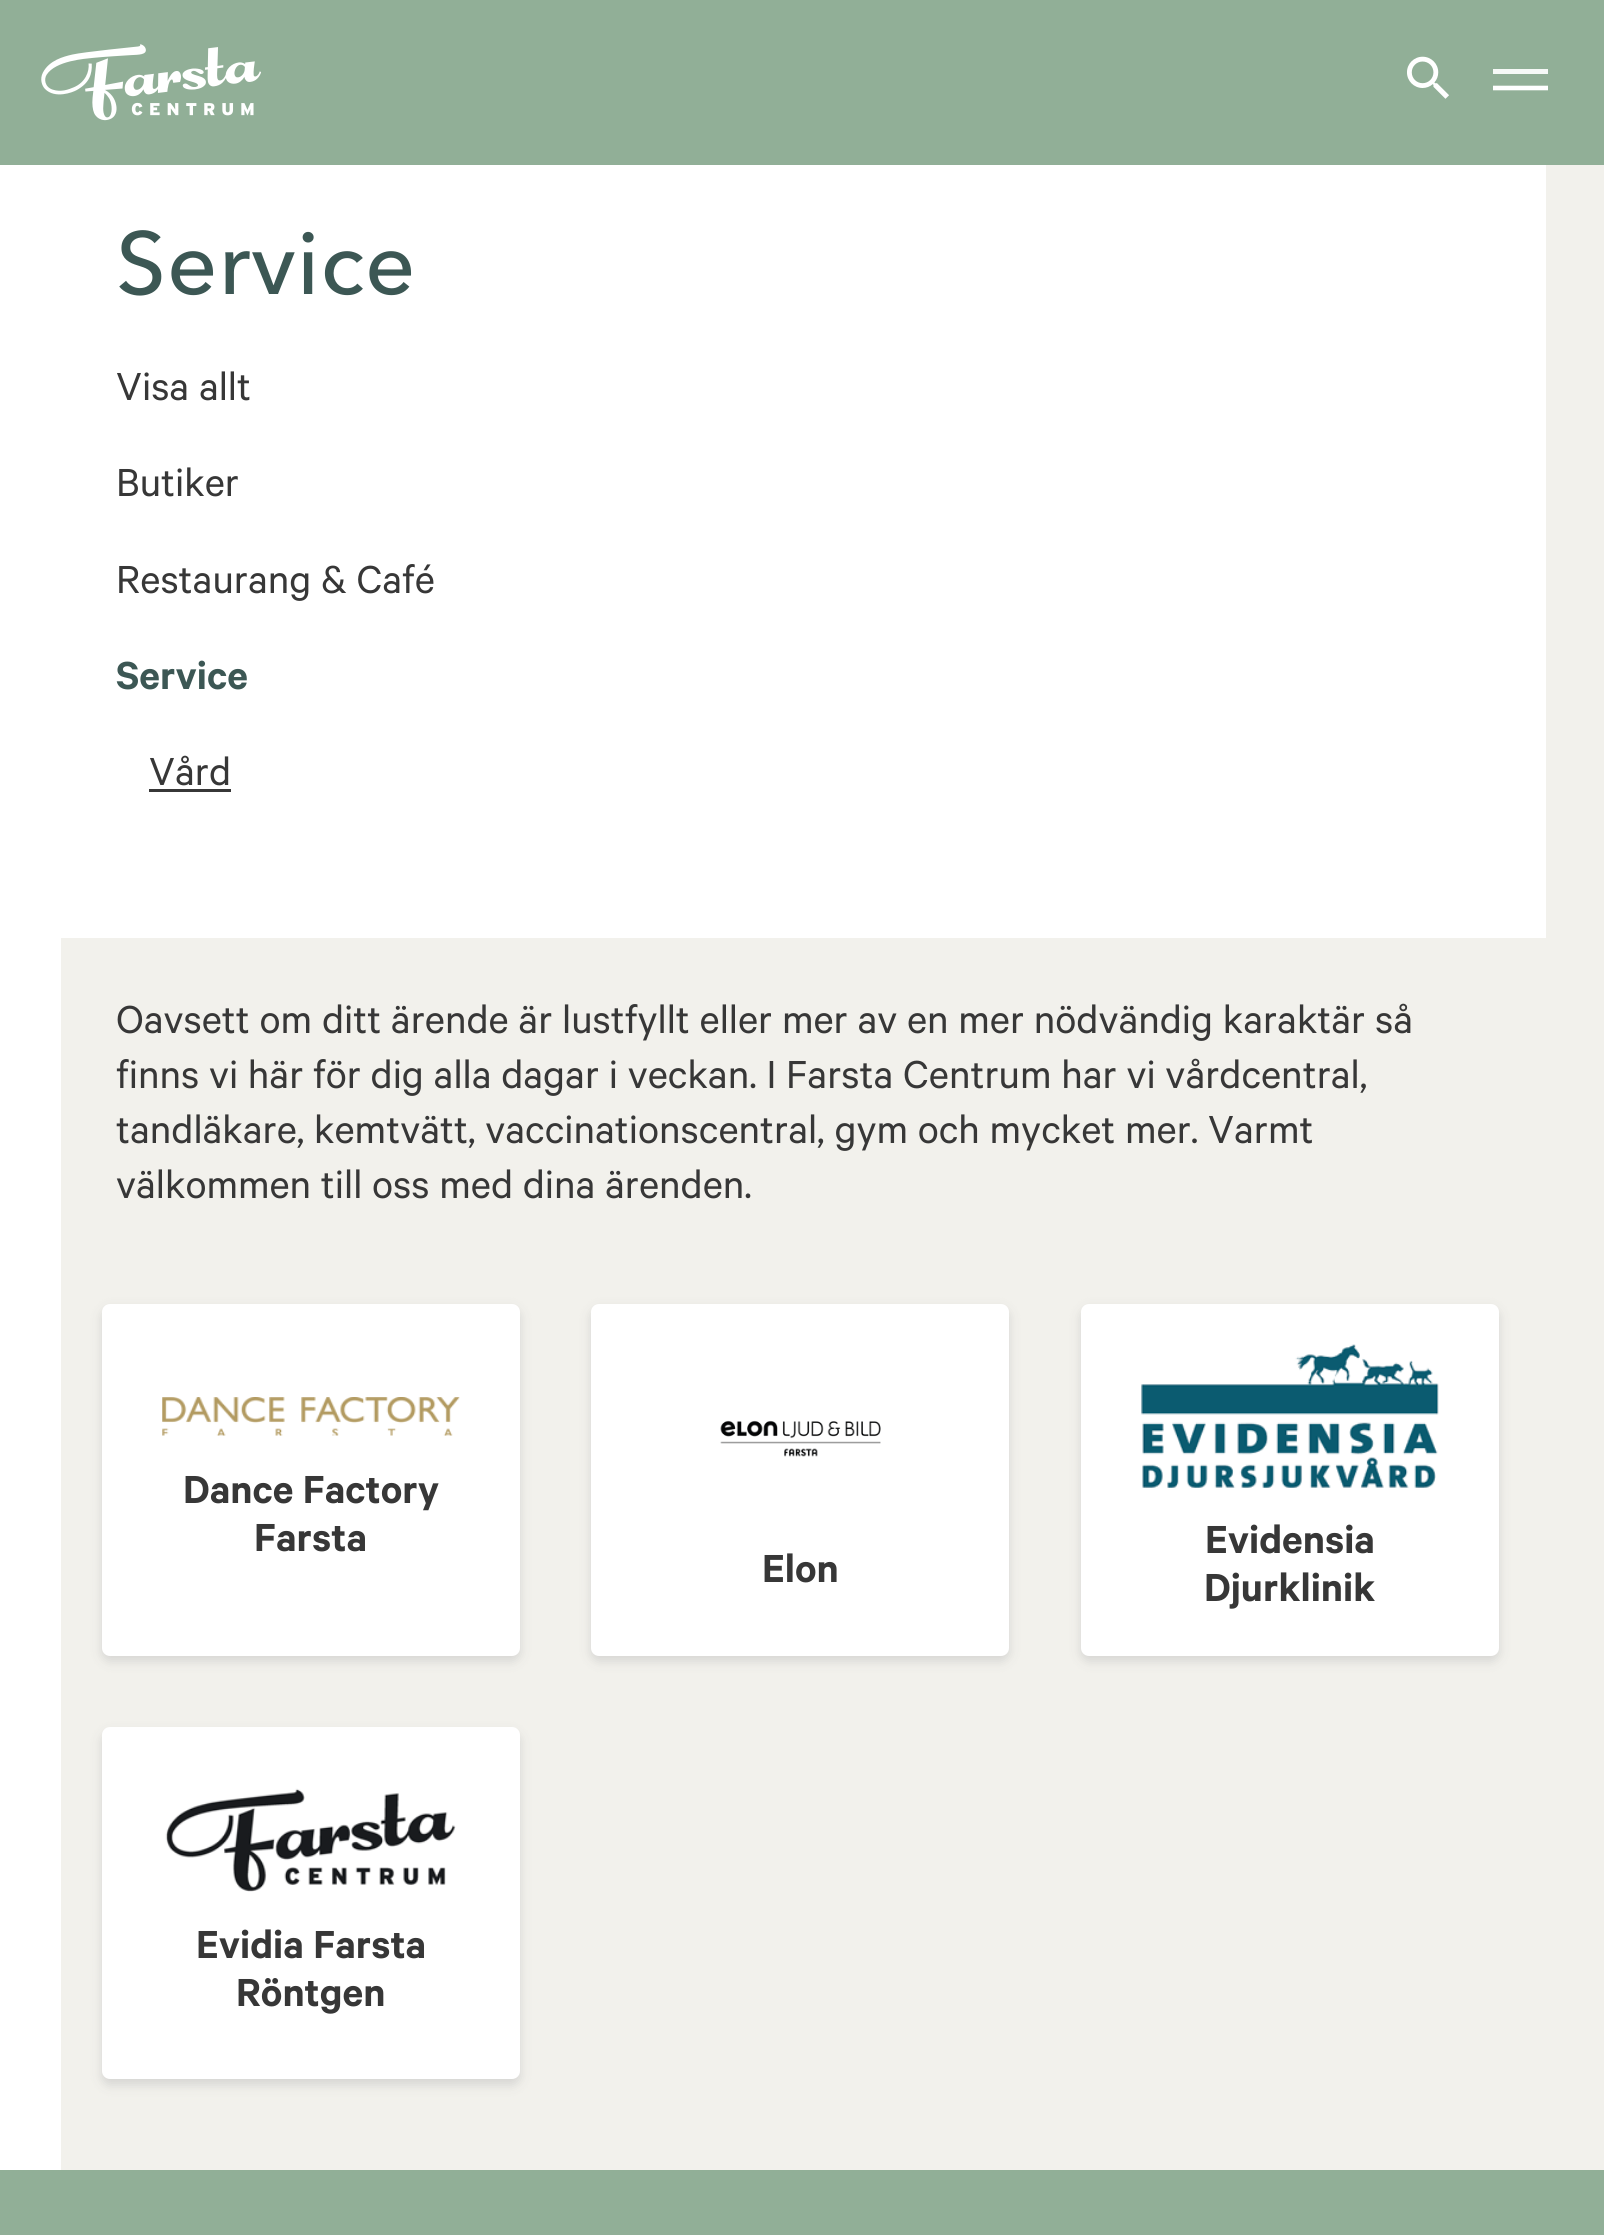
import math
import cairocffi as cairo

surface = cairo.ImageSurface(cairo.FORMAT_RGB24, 1604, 2235)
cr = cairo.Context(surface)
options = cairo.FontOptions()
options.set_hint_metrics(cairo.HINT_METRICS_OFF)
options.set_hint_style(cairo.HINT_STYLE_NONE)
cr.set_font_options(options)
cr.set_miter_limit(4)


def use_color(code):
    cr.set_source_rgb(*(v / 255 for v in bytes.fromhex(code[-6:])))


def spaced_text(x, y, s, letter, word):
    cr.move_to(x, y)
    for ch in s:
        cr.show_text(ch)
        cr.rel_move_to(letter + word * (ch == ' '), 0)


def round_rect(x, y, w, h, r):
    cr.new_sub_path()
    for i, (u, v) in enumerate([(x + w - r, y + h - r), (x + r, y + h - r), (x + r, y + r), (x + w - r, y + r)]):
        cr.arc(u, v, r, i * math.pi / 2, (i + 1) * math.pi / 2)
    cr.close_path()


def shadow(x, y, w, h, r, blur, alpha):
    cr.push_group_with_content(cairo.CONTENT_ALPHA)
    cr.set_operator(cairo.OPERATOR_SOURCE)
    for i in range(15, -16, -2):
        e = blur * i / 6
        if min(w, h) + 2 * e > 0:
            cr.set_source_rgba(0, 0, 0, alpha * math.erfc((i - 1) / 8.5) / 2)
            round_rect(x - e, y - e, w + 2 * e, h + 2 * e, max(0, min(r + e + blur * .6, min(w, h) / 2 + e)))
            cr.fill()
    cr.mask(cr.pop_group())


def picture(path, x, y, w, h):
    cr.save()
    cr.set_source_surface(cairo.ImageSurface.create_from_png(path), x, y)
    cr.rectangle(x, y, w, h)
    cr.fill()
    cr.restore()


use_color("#ffffff")
cr.paint()
use_color("#91af97")
cr.rectangle(0, 0, 1604, 165)
cr.fill()
picture("img1.png", 41, 44, 220, 77)
picture("img2.png", 1407, 56, 42, 43)
use_color("#f6f9f7")
cr.rectangle(1493, 69, 55, 5)
cr.fill()
cr.new_path()
cr.move_to(1493, 88)
cr.line_to(1548, 88)
use_color("#ffffff")
cr.set_line_width(4.6)
cr.stroke()
use_color("#f2f1ec")
cr.rectangle(1546, 165, 58, 2005)
cr.fill()
cr.select_font_face("Avenir Next Medium")
cr.set_font_size(88)
use_color("#3c5754")
spaced_text(116, 294, "Service", 1, 0)
cr.select_font_face("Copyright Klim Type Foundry")
cr.set_font_size(44)
use_color("#373737")
cr.move_to(116, 400)
cr.show_text("Visa allt")
cr.move_to(116, 496)
cr.show_text("Butiker")
cr.move_to(116, 593)
cr.show_text("Restaurang & Café")
cr.select_font_face("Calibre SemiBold")
use_color("#3c5754")
cr.move_to(116, 689)
cr.show_text("Service")
cr.select_font_face("Copyright Klim Type Foundry")
use_color("#373737")
cr.move_to(149, 785)
cr.show_text("Vård")
cr.rectangle(149, 789, 82, 3)
cr.fill()
use_color("#f2f1ec")
cr.rectangle(61, 938, 1485, 1232)
cr.fill()
use_color("#373737")
cr.move_to(116, 1033)
cr.show_text("Oavsett om ditt ärende är lustfyllt eller mer av en mer nödvändig karaktär så")
cr.move_to(116, 1088)
cr.show_text("finns vi här för dig alla dagar i veckan. I Farsta Centrum har vi vårdcentral,")
cr.move_to(116, 1143)
cr.show_text("tandläkare, kemtvätt, vaccinationscentral, gym och mycket mer. Varmt")
cr.move_to(116, 1198)
cr.show_text("välkommen till oss med dina ärenden.")
use_color("#b9b9b9")
shadow(102, 1309, 418, 352, 8, 5.5, 0.5)
use_color("#ffffff")
round_rect(102, 1304, 418, 352, 8)
cr.fill()
picture("img3.png", 162, 1397, 298, 39)
cr.select_font_face("Calibre SemiBold")
use_color("#373737")
cr.move_to(183, 1503)
cr.show_text("Dance Factory")
cr.move_to(254, 1551)
cr.show_text("Farsta")
use_color("#b9b9b9")
shadow(591, 1309, 418, 352, 8, 5.5, 0.5)
use_color("#ffffff")
round_rect(591, 1304, 418, 352, 8)
cr.fill()
picture("img4.png", 720, 1420, 161, 37)
use_color("#373737")
cr.move_to(762, 1582)
cr.show_text("Elon")
use_color("#b9b9b9")
shadow(1081, 1309, 418, 352, 8, 5.5, 0.5)
use_color("#ffffff")
round_rect(1081, 1304, 418, 352, 8)
cr.fill()
picture("img5.png", 1141, 1344, 298, 144)
use_color("#373737")
cr.move_to(1205, 1553)
cr.show_text("Evidensia")
cr.move_to(1204, 1601)
cr.show_text("Djurklinik")
use_color("#b9b9b9")
shadow(102, 1733, 418, 352, 8, 5.5, 0.5)
use_color("#ffffff")
round_rect(102, 1727, 418, 352, 8)
cr.fill()
picture("img6.png", 165, 1788, 291, 104)
use_color("#373737")
cr.move_to(196, 1958)
cr.show_text("Evidia Farsta")
cr.move_to(236, 2006)
cr.show_text("Röntgen")
use_color("#91af97")
cr.rectangle(0, 2170, 1604, 65)
cr.fill()
surface.write_to_png("result.png")
